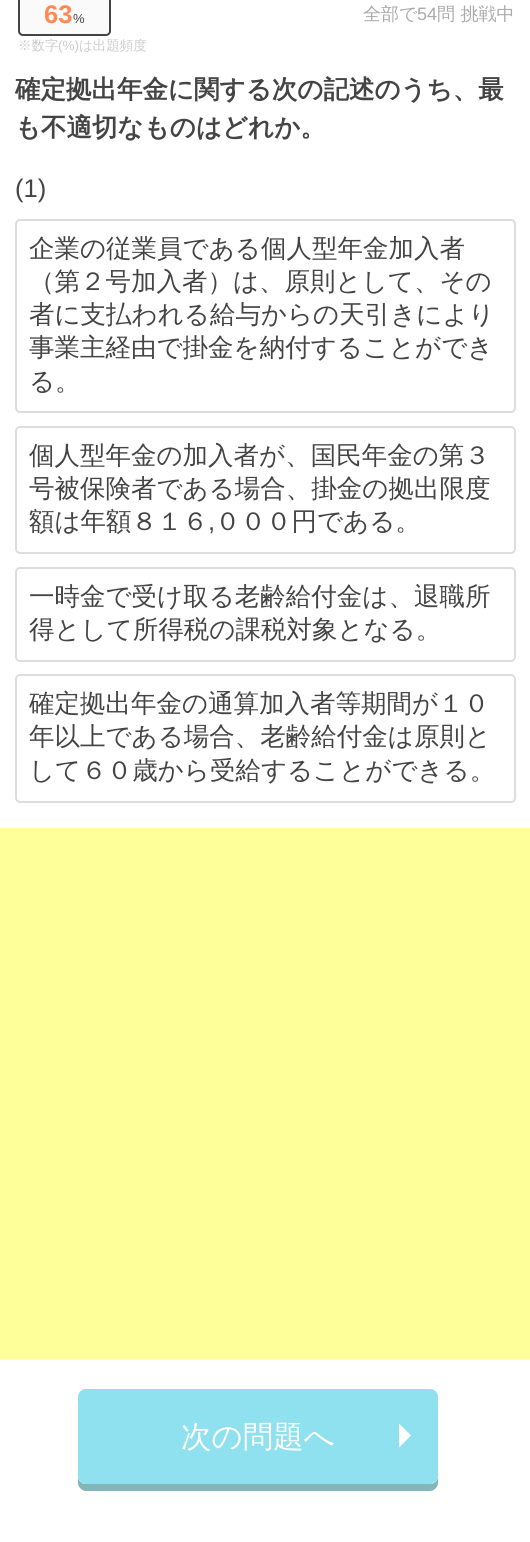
import math
import cairocffi as cairo

surface = cairo.ImageSurface(cairo.FORMAT_RGB24, 530, 1542)
cr = cairo.Context(surface)
options = cairo.FontOptions()
options.set_hint_metrics(cairo.HINT_METRICS_OFF)
options.set_hint_style(cairo.HINT_STYLE_NONE)
cr.set_font_options(options)
cr.set_miter_limit(4)


def use_color(code):
    cr.set_source_rgb(*(v / 255 for v in bytes.fromhex(code[-6:])))


def round_rect(x, y, w, h, r):
    cr.new_sub_path()
    for i, (u, v) in enumerate([(x + w - r, y + h - r), (x + r, y + h - r), (x + r, y + r), (x + w - r, y + r)]):
        cr.arc(u, v, r, i * math.pi / 2, (i + 1) * math.pi / 2)
    cr.close_path()


use_color("#ffffff")
cr.paint()
use_color("#fafafa")
round_rect(19, -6, 91, 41, 4)
cr.fill_preserve()
use_color("#444444")
cr.stroke()
cr.select_font_face("Liberation Sans", cairo.FONT_SLANT_NORMAL, cairo.FONT_WEIGHT_BOLD)
cr.set_font_size(25.5)
use_color("#ff8855")
cr.move_to(44, 23)
cr.show_text("63")
cr.select_font_face("Liberation Sans")
cr.set_font_size(13)
use_color("#444444")
cr.move_to(73, 23)
cr.show_text("%")
cr.select_font_face("WenQuanYi Zen Hei Medium")
cr.set_font_size(13.5)
use_color("#cccccc")
cr.move_to(18, 50)
cr.show_text("※数字")
cr.select_font_face("Liberation Sans")
cr.move_to(58, 50)
cr.show_text("(%)")
cr.select_font_face("WenQuanYi Zen Hei Medium")
cr.move_to(79, 50)
cr.show_text("は出題頻度")
cr.set_font_size(18)
use_color("#aaaaaa")
cr.move_to(363, 20)
cr.show_text("全部で")
cr.select_font_face("Liberation Sans")
cr.move_to(417, 20)
cr.show_text("54")
cr.select_font_face("WenQuanYi Zen Hei Medium")
cr.move_to(437, 20)
cr.show_text("問 挑戦中")
cr.select_font_face("WenQuanYi Zen Hei", cairo.FONT_SLANT_NORMAL, cairo.FONT_WEIGHT_BOLD)
cr.set_font_size(25.5)
use_color("#444444")
cr.move_to(15, 98)
cr.show_text("確定拠出年金に関する次の記述のうち、最")
cr.move_to(15, 136)
cr.show_text("も不適切なものはどれか。")
cr.select_font_face("Liberation Sans")
cr.move_to(15, 197)
cr.show_text("(1)")
round_rect(16, 220, 499, 192, 4)
use_color("#dddddd")
cr.stroke()
cr.select_font_face("WenQuanYi Zen Hei Medium")
use_color("#444444")
cr.move_to(29, 257)
cr.show_text("企業の従業員である個人型年金加入者")
cr.move_to(29, 290)
cr.show_text("（第２号加入者）は、原則として、その")
cr.move_to(29, 323)
cr.show_text("者に支払われる給与からの天引きにより")
cr.move_to(29, 356)
cr.show_text("事業主経由で掛金を納付することができ")
cr.move_to(29, 390)
cr.show_text("る。")
round_rect(16, 427, 499, 126, 4)
use_color("#dddddd")
cr.stroke()
use_color("#444444")
cr.move_to(29, 464)
cr.show_text("個人型年金の加入者が、国民年金の第３")
cr.move_to(29, 497)
cr.show_text("号被保険者である場合、掛金の拠出限度")
cr.move_to(29, 530)
cr.show_text("額は年額８１６")
cr.select_font_face("Liberation Sans")
cr.move_to(208, 530)
cr.show_text(",")
cr.select_font_face("WenQuanYi Zen Hei Medium")
cr.move_to(215, 530)
cr.show_text("０００円である。")
round_rect(16, 568, 499, 93, 4)
use_color("#dddddd")
cr.stroke()
use_color("#444444")
cr.move_to(29, 605)
cr.show_text("一時金で受け取る老齢給付金は、退職所")
cr.move_to(29, 638)
cr.show_text("得として所得税の課税対象となる。")
round_rect(16, 675, 499, 127, 4)
use_color("#dddddd")
cr.stroke()
use_color("#444444")
cr.move_to(29, 712)
cr.show_text("確定拠出年金の通算加入者等期間が１０")
cr.move_to(29, 745)
cr.show_text("年以上である場合、老齢給付金は原則と")
cr.move_to(29, 779)
cr.show_text("して６０歳から受給することができる。")
use_color("#ffff99")
cr.rectangle(0, 828, 530, 531)
cr.fill()
use_color("#82b6b9")
cr.new_path()
cr.move_to(78, 1476)
cr.line_to(78, 1483)
cr.curve_to(78, 1487, 82, 1491, 86, 1491)
cr.line_to(430, 1491)
cr.curve_to(434, 1491, 438, 1487, 438, 1483)
cr.line_to(438, 1476)
cr.curve_to(438, 1480, 435, 1484, 430, 1484)
cr.line_to(86, 1484)
cr.curve_to(81, 1484, 78, 1480, 78, 1476)
cr.close_path()
cr.fill()
use_color("#90e1ef")
round_rect(78, 1389, 360, 95, 8)
cr.fill()
cr.set_font_size(30.5)
use_color("#ffffff")
cr.move_to(181, 1447)
cr.show_text("次の問題へ")
cr.new_path()
cr.move_to(399, 1447.5)
cr.line_to(399, 1423.5)
cr.line_to(411, 1435.5)
cr.close_path()
cr.fill()
surface.write_to_png("result.png")
